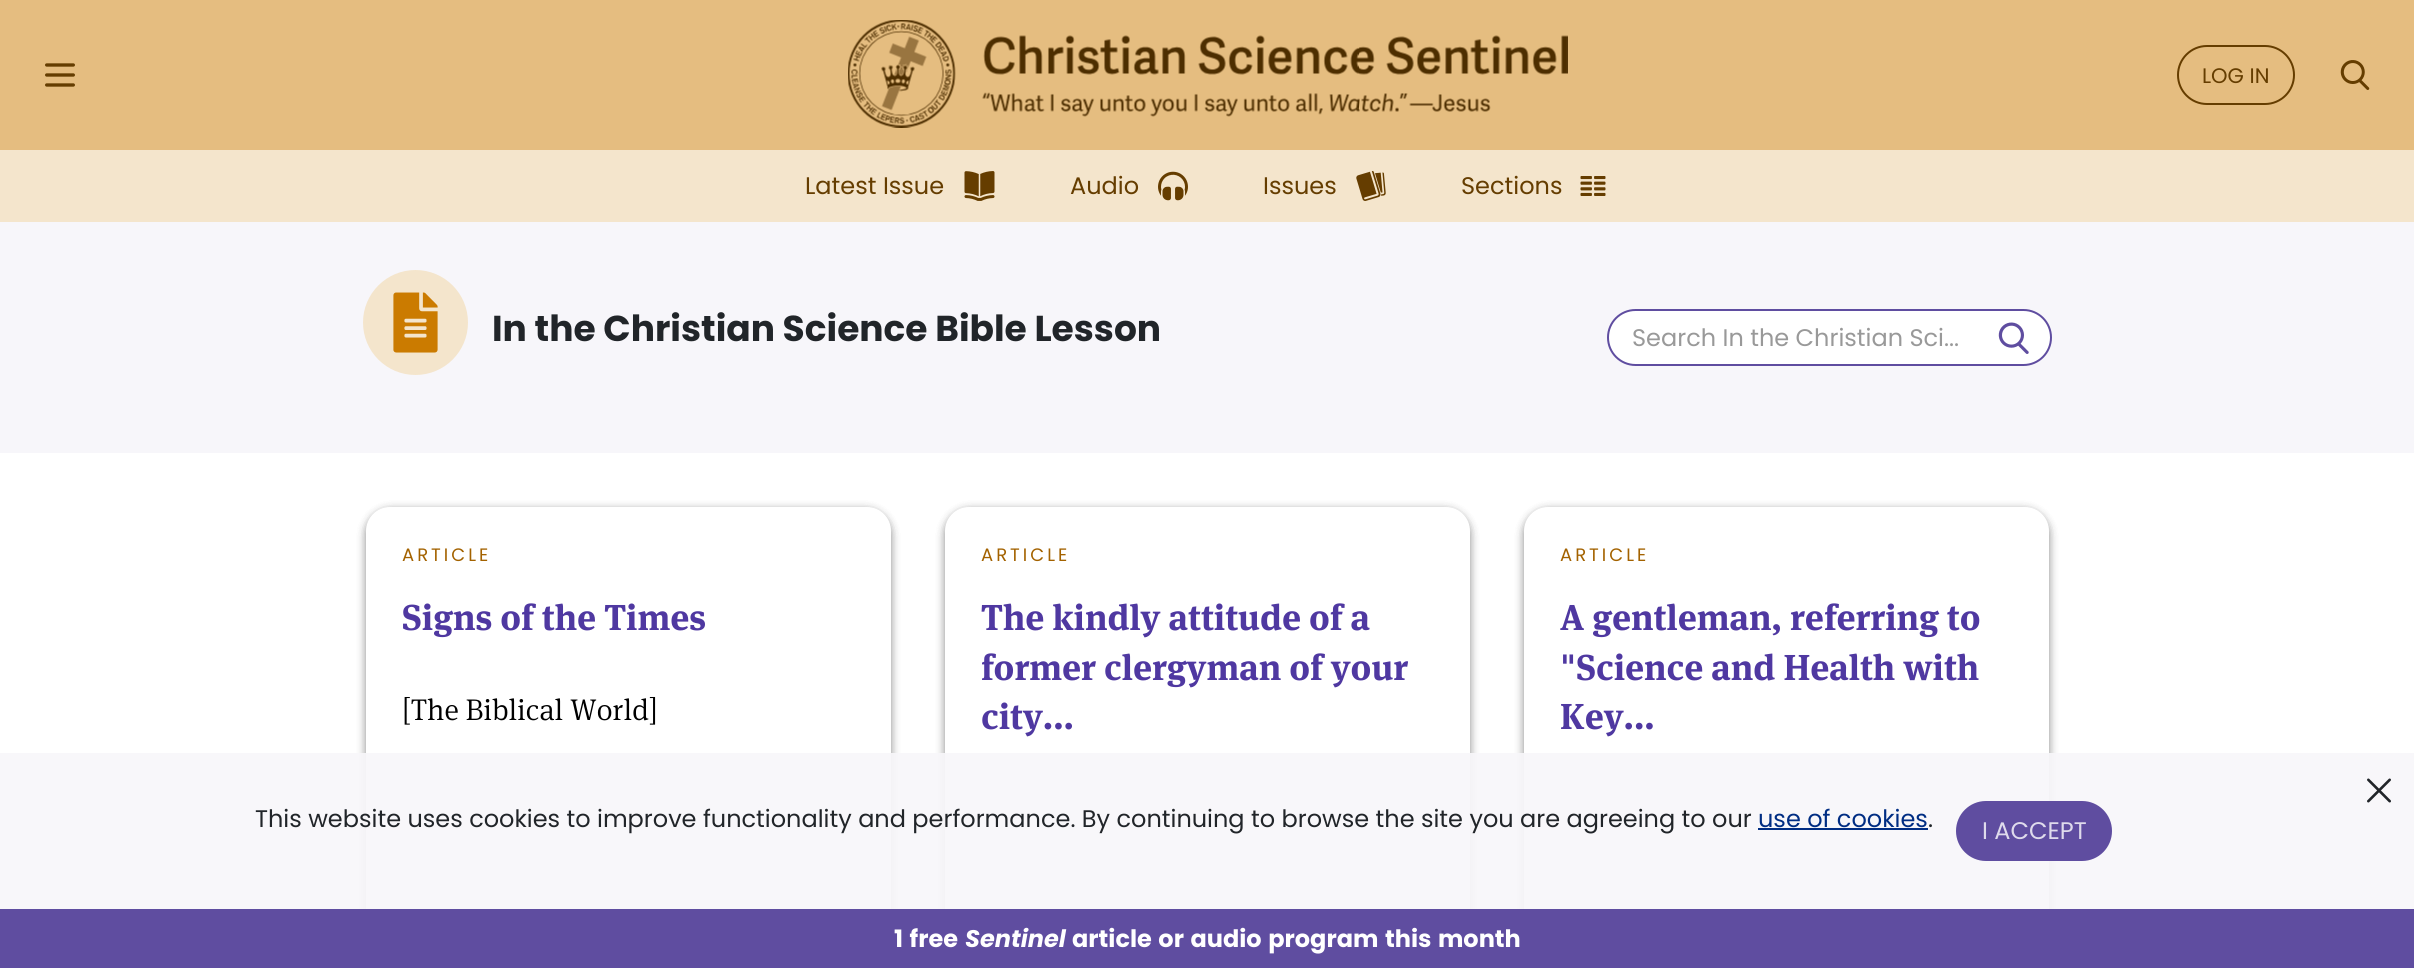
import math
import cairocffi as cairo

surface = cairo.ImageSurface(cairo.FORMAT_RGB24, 2414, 968)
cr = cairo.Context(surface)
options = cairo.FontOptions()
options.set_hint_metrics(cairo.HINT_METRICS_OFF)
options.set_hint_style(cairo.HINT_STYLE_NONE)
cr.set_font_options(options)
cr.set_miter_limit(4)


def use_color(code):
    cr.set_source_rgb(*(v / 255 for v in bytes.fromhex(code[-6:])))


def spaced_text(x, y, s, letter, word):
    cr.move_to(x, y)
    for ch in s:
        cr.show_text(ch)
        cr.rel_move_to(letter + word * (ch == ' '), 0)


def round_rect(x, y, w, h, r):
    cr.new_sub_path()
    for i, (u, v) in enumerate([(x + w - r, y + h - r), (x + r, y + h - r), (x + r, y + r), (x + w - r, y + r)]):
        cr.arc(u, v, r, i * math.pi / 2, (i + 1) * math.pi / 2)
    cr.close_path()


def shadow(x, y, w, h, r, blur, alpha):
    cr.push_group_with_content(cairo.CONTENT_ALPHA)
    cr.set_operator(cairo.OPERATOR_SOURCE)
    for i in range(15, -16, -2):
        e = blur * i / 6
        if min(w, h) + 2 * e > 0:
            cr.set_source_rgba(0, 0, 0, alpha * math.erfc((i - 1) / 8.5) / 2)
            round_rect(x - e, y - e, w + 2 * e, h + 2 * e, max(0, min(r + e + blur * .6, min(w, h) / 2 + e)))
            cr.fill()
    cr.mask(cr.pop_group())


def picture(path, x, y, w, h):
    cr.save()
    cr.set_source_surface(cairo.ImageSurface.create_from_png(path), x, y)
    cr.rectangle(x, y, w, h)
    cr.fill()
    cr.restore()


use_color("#ffffff")
cr.paint()
use_color("#e5bd80")
cr.rectangle(0, 0, 2414, 150)
cr.fill()
picture("img1.png", 45, 63, 30, 24)
picture("img2.png", 848, 20, 720, 108)
round_rect(2178, 46, 116, 58, 29)
use_color("#653d00")
cr.stroke()
cr.select_font_face("Poppins")
cr.set_font_size(21)
cr.move_to(2202, 83)
cr.show_text("LOG IN")
picture("img3.png", 2340, 60, 30, 30)
use_color("#f4e5cc")
cr.rectangle(0, 150, 2414, 72)
cr.fill()
cr.set_font_size(24)
use_color("#653d00")
cr.move_to(805, 194)
cr.show_text("Latest Issue")
picture("img4.png", 964, 171, 31, 30)
cr.move_to(1070, 194)
cr.show_text("Audio")
picture("img5.png", 1158, 171, 30, 30)
cr.move_to(1263, 194)
cr.show_text("Issues")
picture("img6.png", 1356, 171, 30, 30)
cr.move_to(1461, 194)
cr.show_text("Sections")
picture("img7.png", 1580, 176, 26, 20)
use_color("#f7f6fa")
cr.rectangle(0, 222, 2414, 231)
cr.fill()
use_color("#f4e5cc")
cr.arc(415.5, 322.5, 52.5, 0, 2 * math.pi)
cr.fill()
picture("img8.png", 393, 292, 45, 61)
cr.select_font_face("Poppins", cairo.FONT_SLANT_NORMAL, cairo.FONT_WEIGHT_BOLD)
cr.set_font_size(36)
use_color("#212529")
cr.move_to(492, 341)
cr.show_text("In the Christian Science Bible Lesson")
use_color("#ffffff")
round_rect(1608, 310, 443, 55, 27.5)
cr.fill_preserve()
use_color("#5f4da0")
cr.stroke()
cr.select_font_face("Poppins")
cr.set_font_size(24)
use_color("#999999")
cr.move_to(1632, 346)
cr.show_text("Search In the Christian Sci...")
picture("img9.png", 1998, 322, 31, 32)
use_color("#000000")
shadow(366, 510, 525, 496, 24, 4.5, 0.25)
shadow(366, 510, 525, 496, 24, 4.5, 0.25)
use_color("#ffffff")
round_rect(366, 507, 525, 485, 24)
cr.fill()
cr.set_font_size(18)
use_color("#a36200")
spaced_text(402, 561, "ARTICLE", 3, 0)
cr.select_font_face("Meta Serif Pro", cairo.FONT_SLANT_NORMAL, cairo.FONT_WEIGHT_BOLD)
cr.set_font_size(36)
use_color("#4f38a1")
cr.move_to(402, 630)
cr.show_text("Signs of the Times")
cr.select_font_face("Meta Serif Pro Light")
cr.set_font_size(30)
use_color("#000000")
cr.move_to(402, 720)
cr.show_text("[The Biblical World]")
use_color("#000000")
shadow(945, 510, 525, 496, 24, 4.5, 0.25)
shadow(945, 510, 525, 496, 24, 4.5, 0.25)
use_color("#ffffff")
round_rect(945, 507, 525, 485, 24)
cr.fill()
cr.select_font_face("Poppins")
cr.set_font_size(18)
use_color("#a36200")
spaced_text(981, 561, "ARTICLE", 3, 0)
cr.select_font_face("Meta Serif Pro", cairo.FONT_SLANT_NORMAL, cairo.FONT_WEIGHT_BOLD)
cr.set_font_size(36)
use_color("#4f38a1")
cr.move_to(981, 630)
cr.show_text("The kindly attitude of a")
cr.move_to(981, 680)
cr.show_text("former clergyman of your")
cr.move_to(981, 729)
cr.show_text("city...")
use_color("#000000")
shadow(1524, 510, 525, 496, 24, 4.5, 0.25)
shadow(1524, 510, 525, 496, 24, 4.5, 0.25)
use_color("#ffffff")
round_rect(1524, 507, 525, 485, 24)
cr.fill()
cr.select_font_face("Poppins")
cr.set_font_size(18)
use_color("#a36200")
spaced_text(1560, 561, "ARTICLE", 3, 0)
cr.select_font_face("Meta Serif Pro", cairo.FONT_SLANT_NORMAL, cairo.FONT_WEIGHT_BOLD)
cr.set_font_size(36)
use_color("#4f38a1")
cr.move_to(1560, 630)
cr.show_text("A gentleman, referring to")
cr.move_to(1560, 680)
cr.show_text("\"Science and Health with")
cr.move_to(1560, 729)
cr.show_text("Key...")
cr.set_source_rgba(0.969, 0.965, 0.98, 0.92)
cr.rectangle(0, 753, 2414, 156)
cr.fill()
picture("img10.png", 2367, 778, 24, 25)
cr.select_font_face("Poppins")
cr.set_font_size(24)
use_color("#212529")
cr.move_to(255, 827)
cr.show_text("This website uses cookies to improve functionality and performance. By continuing to browse the site you are agreeing to our")
use_color("#002d83")
cr.move_to(1758, 827)
cr.show_text("use of cookies")
cr.rectangle(1758, 828, 170, 2)
cr.fill()
use_color("#212529")
cr.move_to(1928, 827)
cr.show_text(".")
use_color("#5f4da0")
round_rect(1957, 802, 154, 58, 29)
cr.fill_preserve()
cr.stroke()
use_color("#dfdbec")
cr.move_to(1982, 839)
cr.show_text("I ACCEPT")
use_color("#5f4da0")
cr.rectangle(0, 909, 2414, 59)
cr.fill()
cr.select_font_face("Poppins", cairo.FONT_SLANT_NORMAL, cairo.FONT_WEIGHT_BOLD)
use_color("#ffffff")
spaced_text(894, 947, "1 free", 0, 1.5)
cr.select_font_face("Poppins", cairo.FONT_SLANT_ITALIC, cairo.FONT_WEIGHT_BOLD)
cr.move_to(965, 947)
cr.show_text("Sentinel")
cr.select_font_face("Poppins", cairo.FONT_SLANT_NORMAL, cairo.FONT_WEIGHT_BOLD)
spaced_text(1072, 947, "article or audio program this month", 0, 1.5)
surface.write_to_png("result.png")
